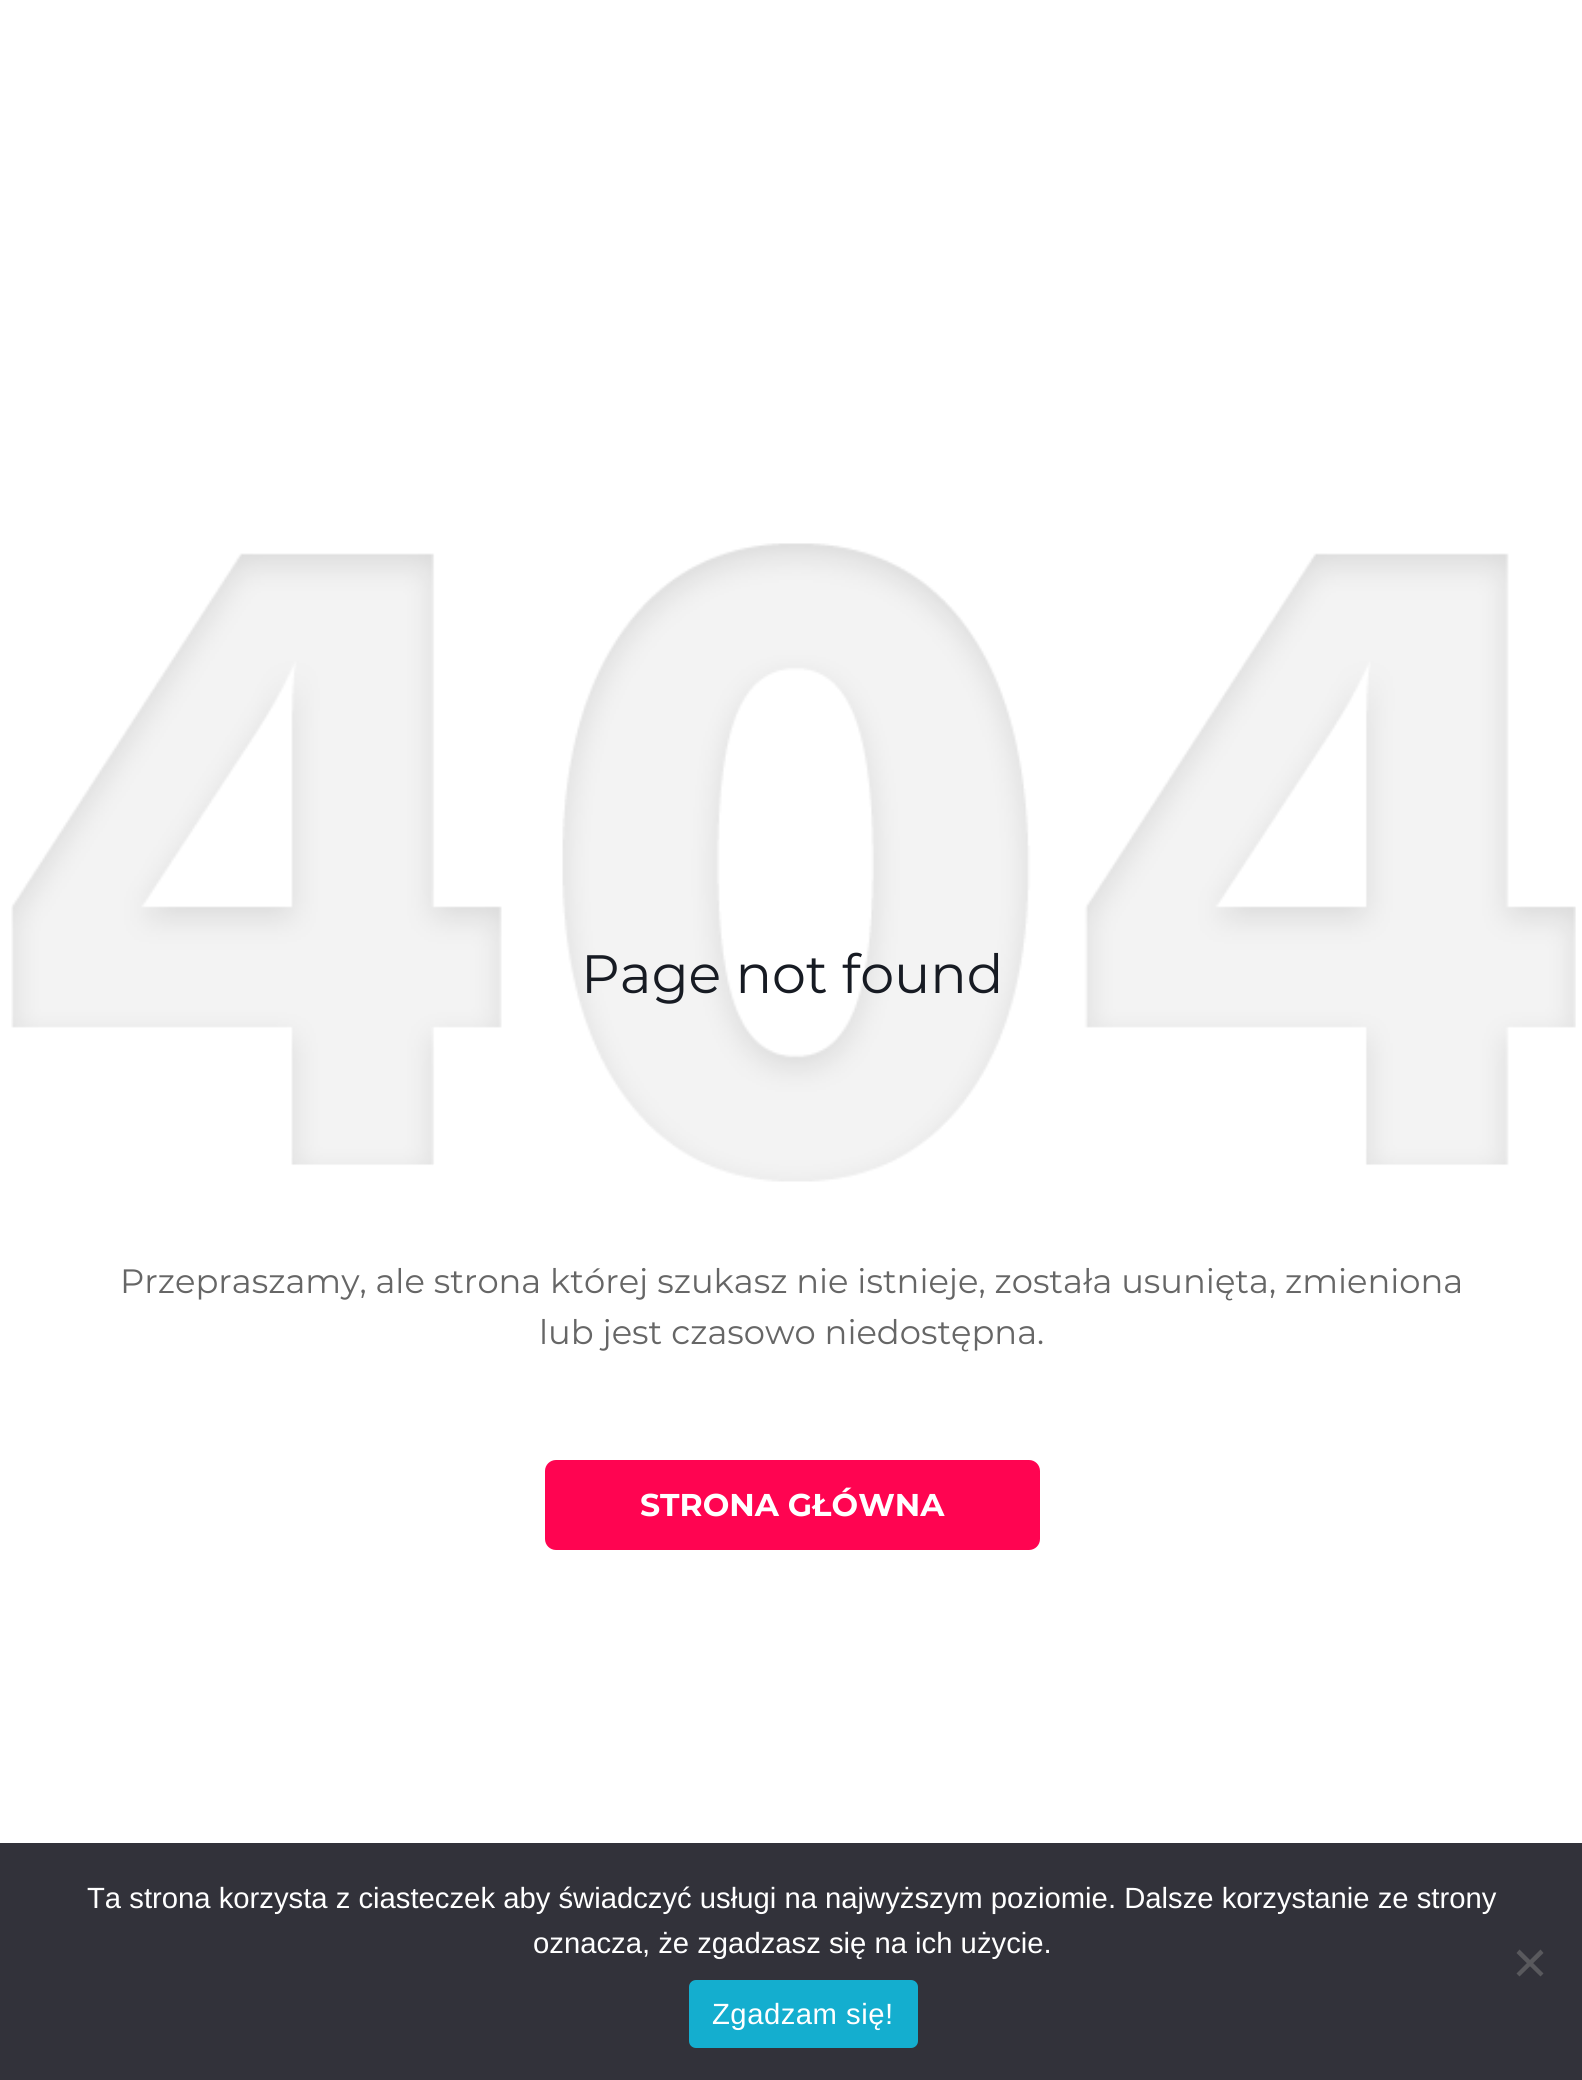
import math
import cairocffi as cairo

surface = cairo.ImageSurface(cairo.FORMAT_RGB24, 1582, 2080)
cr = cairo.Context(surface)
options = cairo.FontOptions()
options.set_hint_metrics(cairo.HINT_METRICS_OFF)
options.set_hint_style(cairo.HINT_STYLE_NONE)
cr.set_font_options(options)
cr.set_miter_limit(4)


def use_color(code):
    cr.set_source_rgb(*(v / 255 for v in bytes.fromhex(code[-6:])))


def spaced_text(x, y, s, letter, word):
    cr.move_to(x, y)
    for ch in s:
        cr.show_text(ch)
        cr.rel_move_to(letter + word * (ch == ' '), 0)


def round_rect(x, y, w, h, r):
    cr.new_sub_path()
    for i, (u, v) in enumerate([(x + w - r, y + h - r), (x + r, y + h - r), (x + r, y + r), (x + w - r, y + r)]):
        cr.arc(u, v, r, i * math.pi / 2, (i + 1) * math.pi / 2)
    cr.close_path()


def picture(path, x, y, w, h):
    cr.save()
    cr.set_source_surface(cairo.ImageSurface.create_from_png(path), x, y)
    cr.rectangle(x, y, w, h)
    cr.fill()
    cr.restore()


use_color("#ffffff")
cr.paint()
picture("img1.png", 11, 543, 1565, 639)
cr.select_font_face("Montserrat")
cr.set_font_size(54)
use_color("#171b23")
cr.move_to(581, 993)
cr.show_text("Page not found")
cr.set_font_size(33.75)
use_color("#666666")
cr.move_to(120, 1293)
cr.show_text("Przepraszamy, ale strona której szukasz nie istnieje, została usunięta, zmieniona")
cr.move_to(539, 1344)
cr.show_text("lub jest czasowo niedostępna.")
use_color("#ff0451")
round_rect(547.5, 1462.5, 490, 85, 8.5)
cr.fill_preserve()
cr.set_line_width(5)
cr.stroke()
cr.select_font_face("Montserrat", cairo.FONT_SLANT_NORMAL, cairo.FONT_WEIGHT_BOLD)
cr.set_font_size(31.5)
use_color("#ffffff")
cr.move_to(640, 1516)
cr.show_text("STRONA GŁÓWNA")
use_color("#32323a")
cr.rectangle(0, 1843, 1582, 237)
cr.fill()
cr.select_font_face("Liberation Sans")
cr.set_font_size(29.25)
use_color("#ffffff")
cr.move_to(87, 1908)
cr.show_text("Ta strona korzysta z ciasteczek aby świadczyć usługi na najwyższym poziomie. Dalsze korzystanie ze strony")
cr.move_to(533, 1953)
cr.show_text("oznacza, że zgadzasz się na ich użycie.")
use_color("#59595d")
cr.new_path()
cr.move_to(1540.5, 1949.5)
cr.line_to(1543.5, 1953)
cr.line_to(1519.5, 1976.5)
cr.line_to(1516.5, 1973.5)
cr.close_path()
cr.fill()
cr.new_path()
cr.move_to(1516.5, 1953)
cr.line_to(1519.5, 1949.5)
cr.line_to(1543.5, 1973.5)
cr.line_to(1540.5, 1976.5)
cr.close_path()
cr.fill()
use_color("#14aecf")
round_rect(689, 1980, 229, 68, 7)
cr.fill()
use_color("#ffffff")
spaced_text(712, 2024, "Zgadzam się!", 0.5, 0)
surface.write_to_png("result.png")
